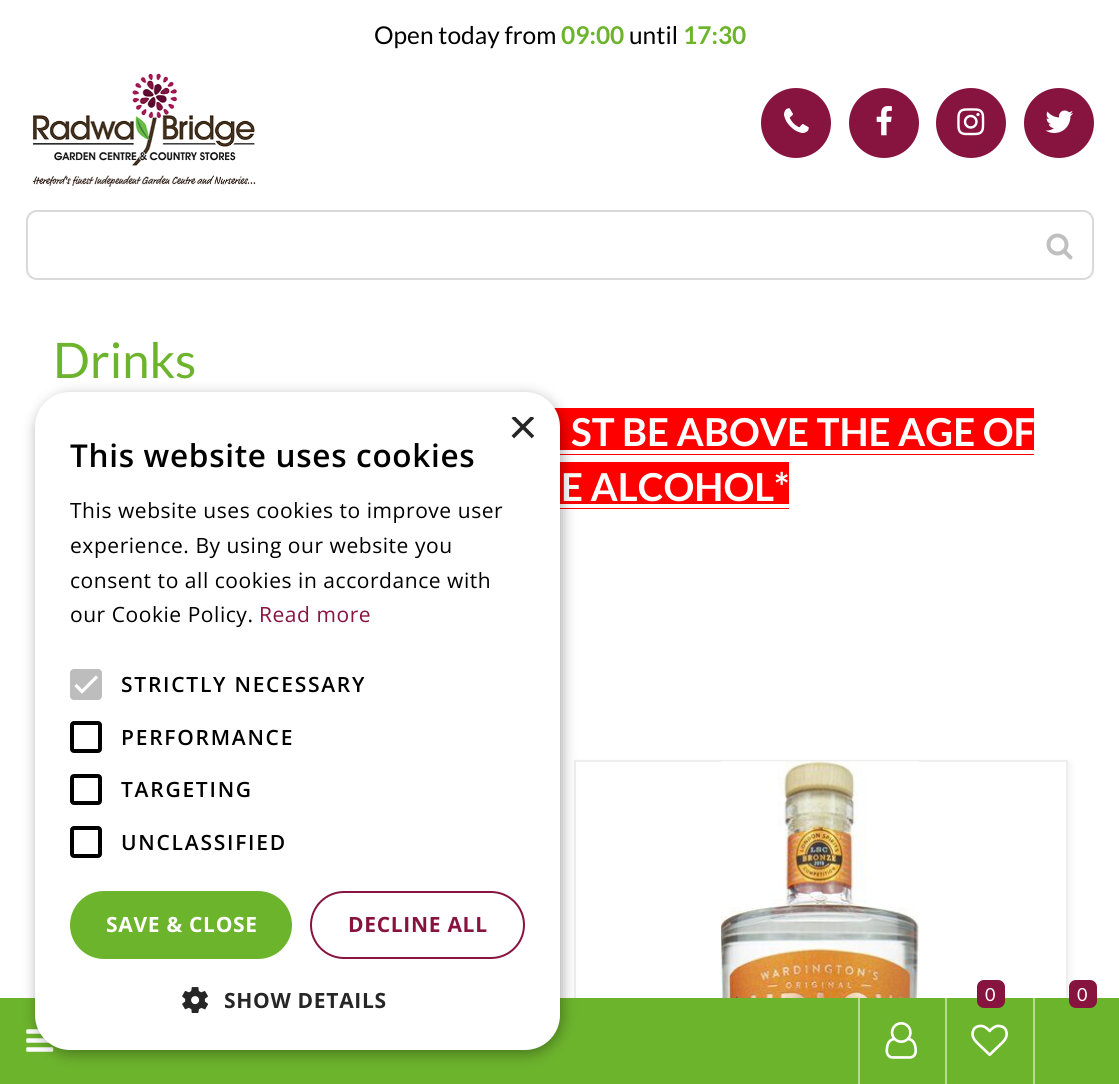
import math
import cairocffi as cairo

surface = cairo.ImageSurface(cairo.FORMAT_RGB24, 1119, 1084)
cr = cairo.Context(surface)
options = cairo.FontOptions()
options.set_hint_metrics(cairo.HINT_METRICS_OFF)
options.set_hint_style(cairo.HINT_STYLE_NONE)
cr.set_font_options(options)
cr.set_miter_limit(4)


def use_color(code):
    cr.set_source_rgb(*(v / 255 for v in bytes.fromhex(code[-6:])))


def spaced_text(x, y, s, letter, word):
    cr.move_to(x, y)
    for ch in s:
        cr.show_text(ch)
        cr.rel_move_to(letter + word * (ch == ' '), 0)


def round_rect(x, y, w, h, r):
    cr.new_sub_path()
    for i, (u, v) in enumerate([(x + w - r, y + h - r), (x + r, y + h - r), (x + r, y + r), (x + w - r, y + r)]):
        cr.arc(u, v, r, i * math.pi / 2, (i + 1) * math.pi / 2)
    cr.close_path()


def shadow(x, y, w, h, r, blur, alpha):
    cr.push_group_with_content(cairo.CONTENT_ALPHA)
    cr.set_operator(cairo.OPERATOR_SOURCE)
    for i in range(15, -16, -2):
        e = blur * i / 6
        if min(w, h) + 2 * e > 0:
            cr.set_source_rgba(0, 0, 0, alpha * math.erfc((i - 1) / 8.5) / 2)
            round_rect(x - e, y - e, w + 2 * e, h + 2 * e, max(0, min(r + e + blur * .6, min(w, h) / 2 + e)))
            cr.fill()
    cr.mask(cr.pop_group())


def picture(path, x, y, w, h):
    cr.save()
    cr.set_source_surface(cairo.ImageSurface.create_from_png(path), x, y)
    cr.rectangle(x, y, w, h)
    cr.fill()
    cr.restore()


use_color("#ffffff")
cr.paint()
cr.select_font_face("Lato")
cr.set_font_size(24.5)
use_color("#000000")
cr.move_to(374, 44)
cr.show_text("Open today from")
cr.select_font_face("Lato", cairo.FONT_SLANT_NORMAL, cairo.FONT_WEIGHT_BOLD)
use_color("#6db42d")
cr.move_to(561, 44)
cr.show_text("09:00")
cr.select_font_face("Lato")
use_color("#000000")
cr.move_to(629, 44)
cr.show_text("until")
cr.select_font_face("Lato", cairo.FONT_SLANT_NORMAL, cairo.FONT_WEIGHT_BOLD)
use_color("#6db42d")
cr.move_to(683, 44)
cr.show_text("17:30")
picture("img1.png", 32, 73, 224, 114)
use_color("#87133f")
cr.arc(796, 123, 35, 0, 2 * math.pi)
cr.fill()
picture("img2.png", 784, 108, 25, 25)
cr.arc(884, 123, 35, 0, 2 * math.pi)
cr.fill()
picture("img3.png", 876, 106, 16, 30)
cr.arc(971, 123, 35, 0, 2 * math.pi)
cr.fill()
picture("img4.png", 957, 108, 28, 28)
cr.arc(1059, 123, 35, 0, 2 * math.pi)
cr.fill()
picture("img5.png", 1045, 110, 29, 23)
round_rect(27, 211, 1066, 68, 10)
use_color("#d9d9d9")
cr.stroke()
picture("img6.png", 1046, 233, 27, 27)
cr.select_font_face("Lato")
cr.set_font_size(49)
use_color("#6db42d")
cr.move_to(53, 378)
cr.show_text("Drinks")
use_color("#ff0000")
cr.rectangle(554, 408, 480, 47)
cr.fill()
cr.select_font_face("Lato", cairo.FONT_SLANT_NORMAL, cairo.FONT_WEIGHT_BOLD)
cr.set_font_size(38.5)
use_color("#ffffff")
cr.move_to(571, 446)
cr.show_text("ST BE ABOVE THE AGE OF")
cr.rectangle(560, 450, 474, 4)
cr.fill()
use_color("#ff0000")
cr.rectangle(560, 462, 229, 47)
cr.fill()
use_color("#ffffff")
cr.move_to(561, 501)
cr.show_text("E ALCOHOL*")
cr.rectangle(560, 504, 229, 4)
cr.fill()
use_color("#000000")
shadow(578, 763, 493, 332, 0, 3.5, 0.05)
use_color("#ffffff")
cr.rectangle(576, 762, 490, 236)
cr.fill()
cr.rectangle(575, 761, 492, 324)
use_color("#eeeeee")
cr.stroke()
picture("img7.png", 721, 761, 198, 237)
use_color("#6db42d")
cr.rectangle(0, 998, 1119, 86)
cr.fill()
use_color("#b6da96")
cr.rectangle(945, 998, 2, 86)
cr.fill()
use_color("#87133f")
round_rect(977, 980, 28, 28, 7)
cr.fill()
cr.select_font_face("Lato")
cr.set_font_size(18)
use_color("#ffffff")
cr.move_to(985, 1001)
cr.show_text("0")
picture("img8.png", 971, 1024, 37, 33)
use_color("#b6da96")
cr.rectangle(1033, 998, 2, 86)
cr.fill()
use_color("#87133f")
round_rect(1069, 980, 28, 28, 7)
cr.fill()
use_color("#ffffff")
cr.move_to(1077, 1001)
cr.show_text("0")
picture("img9.png", 26, 1029, 28, 23)
use_color("#b6da96")
cr.rectangle(858, 998, 2, 86)
cr.fill()
picture("img10.png", 885, 1022, 32, 37)
use_color("#000000")
shadow(37, 396, 525, 658, 35, 7, 0.35)
use_color("#ffffff")
round_rect(35, 392, 525, 658, 35)
cr.fill()
cr.save()
cr.rectangle(508, 417, 26, 26)
cr.clip()
cr.select_font_face("Liberation Sans")
cr.set_font_size(51)
use_color("#262626")
cr.move_to(508, 444)
cr.show_text("×")
cr.restore()
cr.select_font_face("Open Sans SemiBold")
cr.set_font_size(31.5)
use_color("#000000")
spaced_text(70, 467, "This website uses cookies", 0.7, 0)
cr.select_font_face("Open Sans")
cr.set_font_size(21)
spaced_text(70, 518, "This website uses cookies to improve user", 0.55, 0)
spaced_text(70, 553, "experience. By using our website you", 0.55, 0)
spaced_text(70, 588, "consent to all cookies in accordance with", 0.55, 0)
spaced_text(70, 622, "our Cookie Policy.", 0.55, 0)
use_color("#87133f")
spaced_text(259, 622, "Read more", 0.55, 0)
use_color("#bdbdbd")
round_rect(70, 669, 32, 31, 4)
cr.fill()
cr.new_path()
cr.move_to(75.5, 685)
cr.line_to(82, 691.5)
cr.line_to(97, 676.5)
use_color("#ffffff")
cr.set_line_width(3.2)
cr.stroke()
cr.select_font_face("Open Sans SemiBold")
use_color("#000000")
spaced_text(121, 692, "STRICTLY NECESSARY", 1.75, 0)
round_rect(72, 723, 28, 28, 2)
cr.set_line_width(4)
cr.stroke()
spaced_text(121, 745, "PERFORMANCE", 1.75, 0)
round_rect(72, 776, 28, 27, 2)
cr.stroke()
spaced_text(121, 797, "TARGETING", 1.75, 0)
round_rect(72, 828, 28, 28, 2)
cr.stroke()
spaced_text(121, 850, "UNCLASSIFIED", 1.75, 0)
use_color("#6db42d")
round_rect(70, 891, 222, 68, 34)
cr.fill()
cr.select_font_face("Open Sans", cairo.FONT_SLANT_NORMAL, cairo.FONT_WEIGHT_BOLD)
use_color("#ffffff")
spaced_text(106, 932, "SAVE & CLOSE", 0.7, 0)
round_rect(311, 892, 213, 66, 33)
use_color("#87133f")
cr.set_line_width(2)
cr.stroke()
spaced_text(348, 932, "DECLINE ALL", 0.7, 0)
picture("img11.png", 182, 987, 26, 26)
use_color("#262626")
spaced_text(224, 1008, "SHOW DETAILS", 0.7, 0)
surface.write_to_png("result.png")
